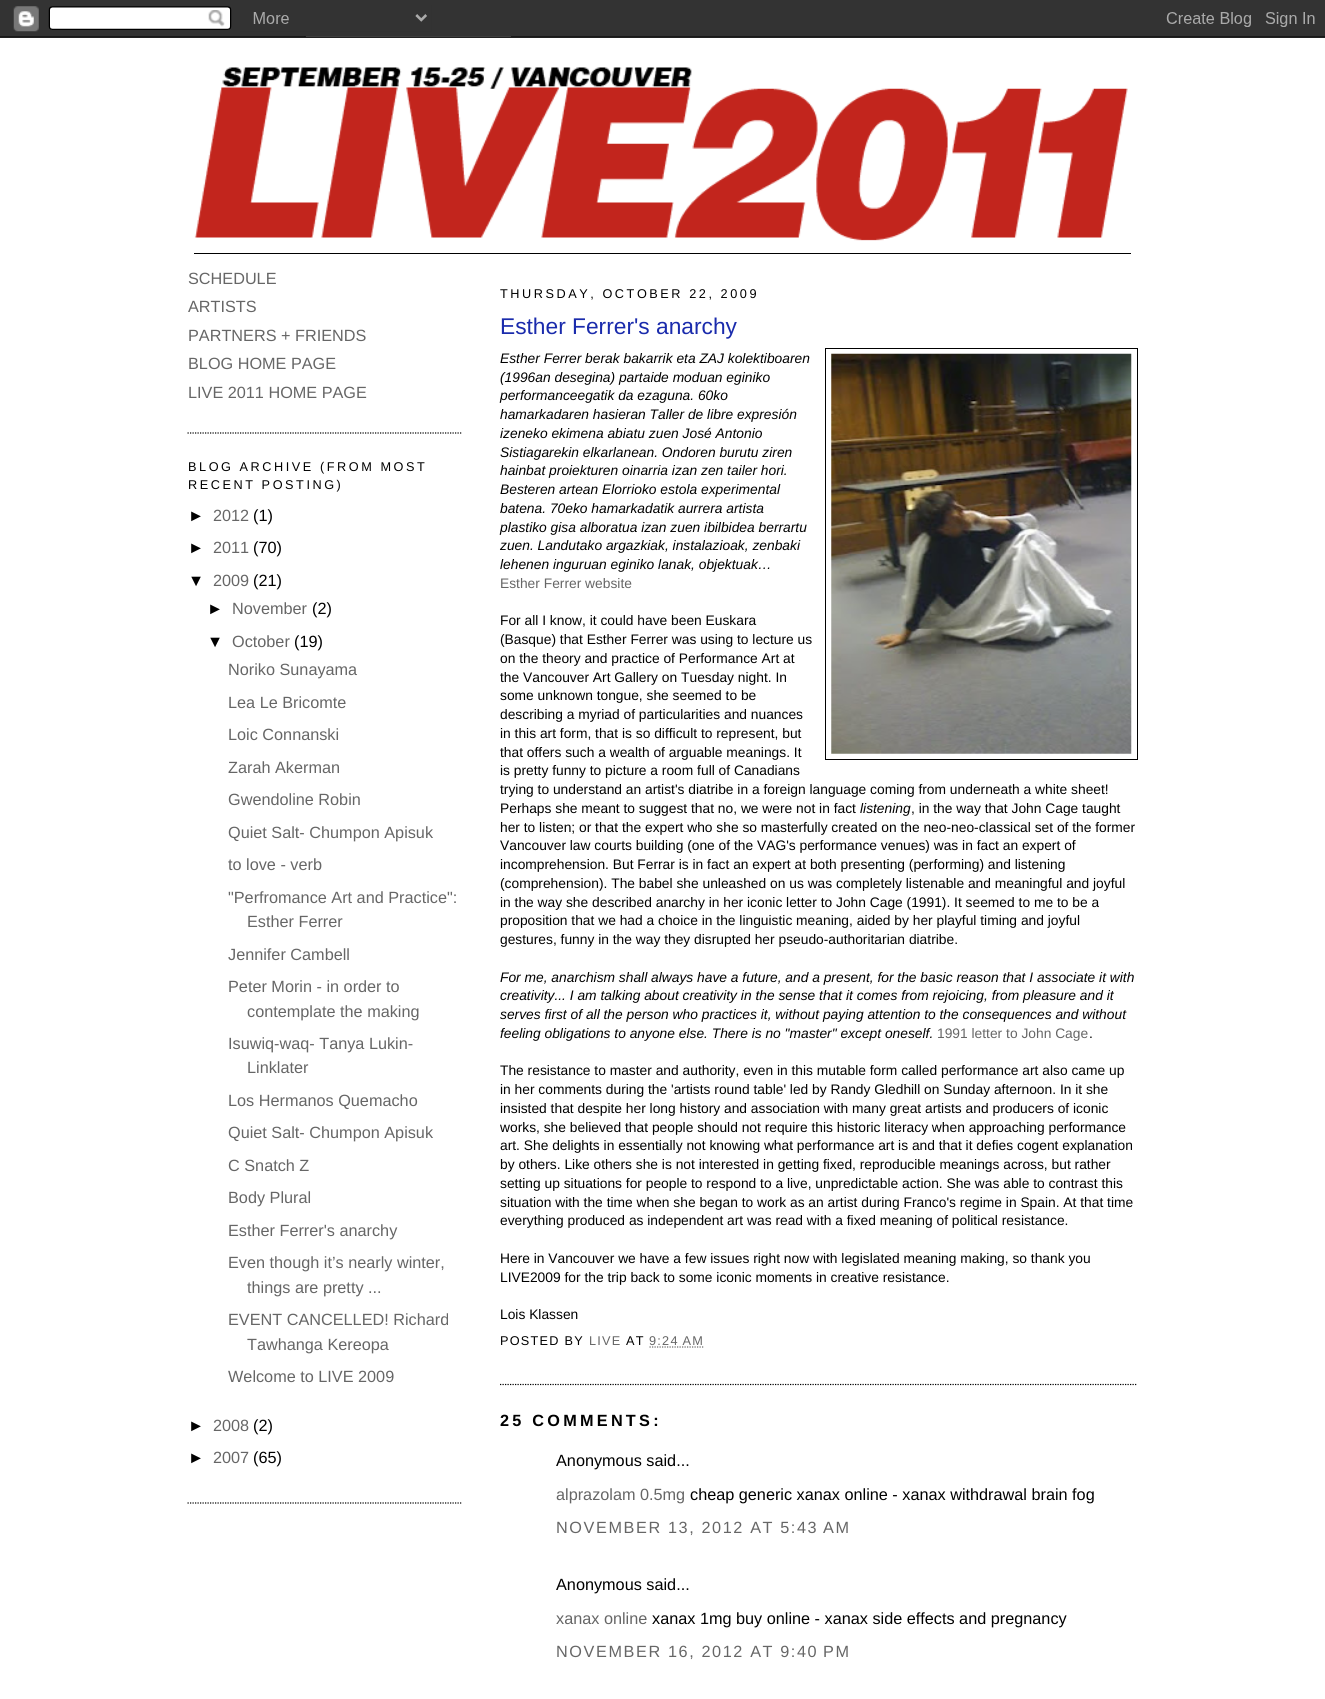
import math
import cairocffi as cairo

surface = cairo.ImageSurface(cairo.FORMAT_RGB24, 1325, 1699)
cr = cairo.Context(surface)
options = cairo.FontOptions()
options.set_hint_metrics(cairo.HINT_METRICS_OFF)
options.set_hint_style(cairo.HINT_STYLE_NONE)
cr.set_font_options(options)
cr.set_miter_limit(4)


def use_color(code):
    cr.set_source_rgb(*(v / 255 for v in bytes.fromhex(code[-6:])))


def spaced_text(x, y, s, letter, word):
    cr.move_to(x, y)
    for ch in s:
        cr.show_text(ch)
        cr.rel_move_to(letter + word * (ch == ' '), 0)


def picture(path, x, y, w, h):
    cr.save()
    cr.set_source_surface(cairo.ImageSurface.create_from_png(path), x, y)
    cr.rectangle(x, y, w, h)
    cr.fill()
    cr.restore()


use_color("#ffffff")
cr.paint()
picture("img1.png", 0, 0, 1325, 38)
use_color("#000000")
cr.rectangle(194, 253, 937, 1)
cr.fill()
picture("img2.png", 194, 67, 934, 174)
cr.new_path()
cr.move_to(187.5, 433)
cr.line_to(462.5, 433)
cr.set_line_width(1.2)
cr.set_dash([1.25, 1.25])
cr.stroke()
cr.select_font_face("Liberation Sans")
cr.set_font_size(16.25)
use_color("#666666")
cr.move_to(188, 284)
cr.show_text("SCHEDULE")
cr.move_to(188, 312)
cr.show_text("ARTISTS")
cr.move_to(188, 341)
cr.show_text("PARTNERS + FRIENDS")
cr.move_to(188, 369)
cr.show_text("BLOG HOME PAGE")
cr.move_to(188, 398)
cr.show_text("LIVE 2011 HOME PAGE")
cr.new_path()
cr.move_to(187.5, 1503)
cr.line_to(462.5, 1503)
use_color("#000000")
cr.stroke()
cr.set_font_size(12.7)
spaced_text(188, 471, "BLOG ARCHIVE (FROM MOST", 2.55, 0)
spaced_text(188, 489, "RECENT POSTING)", 2.55, 0)
cr.set_font_size(16.25)
cr.move_to(188, 521)
cr.show_text("►")
use_color("#666666")
cr.move_to(213, 521)
cr.show_text("2012")
use_color("#000000")
cr.move_to(253, 521)
cr.show_text("(1)")
cr.move_to(188, 553)
cr.show_text("►")
use_color("#666666")
cr.move_to(213, 553)
cr.show_text("2011")
use_color("#000000")
cr.move_to(253, 553)
cr.show_text("(70)")
cr.move_to(188, 586)
cr.show_text("▼")
use_color("#666666")
cr.move_to(213, 586)
cr.show_text("2009")
use_color("#000000")
cr.move_to(253, 586)
cr.show_text("(21)")
cr.move_to(207, 614)
cr.show_text("►")
use_color("#666666")
cr.move_to(232, 614)
cr.show_text("November")
use_color("#000000")
cr.move_to(312, 614)
cr.show_text("(2)")
cr.move_to(207, 647)
cr.show_text("▼")
use_color("#666666")
cr.move_to(232, 647)
cr.show_text("October")
use_color("#000000")
cr.move_to(294, 647)
cr.show_text("(19)")
use_color("#666666")
cr.move_to(228, 675)
cr.show_text("Noriko Sunayama")
cr.move_to(228, 708)
cr.show_text("Lea Le Bricomte")
cr.move_to(228, 740)
cr.show_text("Loic Connanski")
cr.move_to(228, 773)
cr.show_text("Zarah Akerman")
cr.move_to(228, 805)
cr.show_text("Gwendoline Robin")
cr.move_to(228, 838)
cr.show_text("Quiet Salt- Chumpon Apisuk")
cr.move_to(228, 870)
cr.show_text("to love - verb")
cr.move_to(228, 903)
cr.show_text("\"Perfromance Art and Practice\":")
cr.move_to(247, 927)
cr.show_text("Esther Ferrer")
cr.move_to(228, 960)
cr.show_text("Jennifer Cambell")
cr.move_to(228, 992)
cr.show_text("Peter Morin - in order to")
cr.move_to(247, 1017)
cr.show_text("contemplate the making")
cr.move_to(228, 1049)
cr.show_text("Isuwiq-waq- Tanya Lukin-")
cr.move_to(247, 1073)
cr.show_text("Linklater")
cr.move_to(228, 1106)
cr.show_text("Los Hermanos Quemacho")
cr.move_to(228, 1138)
cr.show_text("Quiet Salt- Chumpon Apisuk")
cr.move_to(228, 1171)
cr.show_text("C Snatch Z")
cr.move_to(228, 1203)
cr.show_text("Body Plural")
cr.move_to(228, 1236)
cr.show_text("Esther Ferrer's anarchy")
cr.move_to(228, 1268)
cr.show_text("Even though it’s nearly winter,")
cr.move_to(247, 1293)
cr.show_text("things are pretty ...")
cr.move_to(228, 1325)
cr.show_text("EVENT CANCELLED! Richard")
cr.move_to(247, 1350)
cr.show_text("Tawhanga Kereopa")
cr.move_to(228, 1382)
cr.show_text("Welcome to LIVE 2009")
use_color("#000000")
cr.move_to(188, 1431)
cr.show_text("►")
use_color("#666666")
cr.move_to(213, 1431)
cr.show_text("2008")
use_color("#000000")
cr.move_to(253, 1431)
cr.show_text("(2)")
cr.move_to(188, 1463)
cr.show_text("►")
use_color("#666666")
cr.move_to(213, 1463)
cr.show_text("2007")
use_color("#000000")
cr.move_to(253, 1463)
cr.show_text("(65)")
cr.set_font_size(12.7)
spaced_text(500, 298, "THURSDAY, OCTOBER 22, 2009", 2.55, 0)
cr.new_path()
cr.move_to(500, 1384.5)
cr.line_to(1137.5, 1384.5)
cr.stroke()
cr.set_font_size(22.75)
use_color("#1a2bac")
cr.move_to(500, 334)
cr.show_text("Esther Ferrer's anarchy")
cr.select_font_face("Liberation Sans", cairo.FONT_SLANT_ITALIC)
cr.set_font_size(13.8)
use_color("#000000")
cr.move_to(500, 363)
cr.show_text("Esther Ferrer berak bakarrik eta ZAJ kolektiboaren")
cr.rectangle(825.5, 348.5, 312, 411)
cr.set_line_width(1)
cr.set_dash([])
cr.stroke()
picture("img3.png", 831, 353, 301, 401)
cr.move_to(500, 382)
cr.show_text("(1996an desegina) partaide moduan eginiko")
cr.move_to(500, 400)
cr.show_text("performanceegatik da ezaguna. 60ko")
cr.move_to(500, 419)
cr.show_text("hamarkadaren hasieran Taller de libre expresión")
cr.move_to(500, 438)
cr.show_text("izeneko ekimena abiatu zuen José Antonio")
cr.move_to(500, 457)
cr.show_text("Sistiagarekin elkarlanean. Ondoren burutu ziren")
cr.move_to(500, 475)
cr.show_text("hainbat proiekturen oinarria izan zen tailer hori.")
cr.move_to(500, 494)
cr.show_text("Besteren artean Elorrioko estola experimental")
cr.move_to(500, 513)
cr.show_text("batena. 70eko hamarkadatik aurrera artista")
cr.move_to(500, 532)
cr.show_text("plastiko gisa alboratua izan zuen ibilbidea berrartu")
cr.move_to(500, 550)
cr.show_text("zuen. Landutako argazkiak, instalazioak, zenbaki")
cr.move_to(500, 569)
cr.show_text("lehenen inguruan eginiko lanak, objektuak…")
cr.select_font_face("Liberation Sans")
use_color("#666666")
cr.move_to(500, 588)
cr.show_text("Esther Ferrer website")
use_color("#000000")
cr.move_to(500, 625)
cr.show_text("For all I know, it could have been Euskara")
cr.move_to(500, 644)
cr.show_text("(Basque) that Esther Ferrer was using to lecture us")
cr.move_to(500, 663)
cr.show_text("on the theory and practice of Performance Art at")
cr.move_to(500, 682)
cr.show_text("the Vancouver Art Gallery on Tuesday night. In")
cr.move_to(500, 700)
cr.show_text("some unknown tongue, she seemed to be")
cr.move_to(500, 719)
cr.show_text("describing a myriad of particularities and nuances")
cr.move_to(500, 738)
cr.show_text("in this art form, that is so difficult to represent, but")
cr.move_to(500, 757)
cr.show_text("that offers such a wealth of arguable meanings. It")
cr.move_to(500, 775)
cr.show_text("is pretty funny to picture a room full of Canadians")
cr.move_to(500, 794)
cr.show_text("trying to understand an artist's diatribe in a foreign language coming from underneath a white sheet!")
cr.move_to(500, 813)
cr.show_text("Perhaps she meant to suggest that no, we were not in fact")
cr.select_font_face("Liberation Sans", cairo.FONT_SLANT_ITALIC)
cr.move_to(860, 813)
cr.show_text("listening")
cr.select_font_face("Liberation Sans")
cr.move_to(911, 813)
cr.show_text(", in the way that John Cage taught")
cr.move_to(500, 832)
cr.show_text("her to listen; or that the expert who she so masterfully created on the neo-neo-classical set of the former")
cr.move_to(500, 850)
cr.show_text("Vancouver law courts building (one of the VAG's performance venues) was in fact an expert of")
cr.move_to(500, 869)
cr.show_text("incomprehension. But Ferrar is in fact an expert at both presenting (performing) and listening")
cr.move_to(500, 888)
cr.show_text("(comprehension). The babel she unleashed on us was completely listenable and meaningful and joyful")
cr.move_to(500, 907)
cr.show_text("in the way she described anarchy in her iconic letter to John Cage (1991). It seemed to me to be a")
cr.move_to(500, 925)
cr.show_text("proposition that we had a choice in the linguistic meaning, aided by her playful timing and joyful")
cr.move_to(500, 944)
cr.show_text("gestures, funny in the way they disrupted her pseudo-authoritarian diatribe.")
cr.select_font_face("Liberation Sans", cairo.FONT_SLANT_ITALIC)
cr.move_to(500, 982)
cr.show_text("For me, anarchism shall always have a future, and a present, for the basic reason that I associate it with")
cr.move_to(500, 1000)
cr.show_text("creativity... I am talking about creativity in the sense that it comes from rejoicing, from pleasure and it")
cr.move_to(500, 1019)
cr.show_text("serves first of all the person who practices it, without paying attention to the consequences and without")
cr.move_to(500, 1038)
cr.show_text("feeling obligations to anyone else. There is no \"master\" except oneself.")
cr.select_font_face("Liberation Sans")
use_color("#666666")
cr.move_to(937, 1038)
cr.show_text("1991 letter to John Cage")
use_color("#000000")
cr.move_to(1089, 1038)
cr.show_text(".")
cr.move_to(500, 1075)
cr.show_text("The resistance to master and authority, even in this mutable form called performance art also came up")
cr.move_to(500, 1094)
cr.show_text("in her comments during the 'artists round table' led by Randy Gledhill on Sunday afternoon. In it she")
cr.move_to(500, 1113)
cr.show_text("insisted that despite her long history and association with many great artists and producers of iconic")
cr.move_to(500, 1132)
cr.show_text("works, she believed that people should not require this historic literacy when approaching performance")
cr.move_to(500, 1150)
cr.show_text("art. She delights in essentially not knowing what performance art is and that it defies cogent explanation")
cr.move_to(500, 1169)
cr.show_text("by others. Like others she is not interested in getting fixed, reproducible meanings across, but rather")
cr.move_to(500, 1188)
cr.show_text("setting up situations for people to respond to a live, unpredictable action. She was able to contrast this")
cr.move_to(500, 1207)
cr.show_text("situation with the time when she began to work as an artist during Franco's regime in Spain. At that time")
cr.move_to(500, 1225)
cr.show_text("everything produced as independent art was read with a fixed meaning of political resistance.")
cr.move_to(500, 1263)
cr.show_text("Here in Vancouver we have a few issues right now with legislated meaning making, so thank you")
cr.move_to(500, 1282)
cr.show_text("LIVE2009 for the trip back to some iconic moments in creative resistance.")
cr.move_to(500, 1319)
cr.show_text("Lois Klassen")
cr.set_font_size(12.7)
spaced_text(500, 1345, "POSTED BY", 1.25, 0)
use_color("#666666")
spaced_text(589, 1345, "LIVE", 1.25, 0)
use_color("#000000")
spaced_text(626, 1345, "AT", 1.25, 0)
use_color("#666666")
spaced_text(649, 1345, "9:24 AM", 1.25, 0)
cr.new_path()
cr.move_to(649.5, 1347)
cr.line_to(704.5, 1347)
cr.set_line_width(1.2)
cr.set_dash([1.25, 1.25])
cr.stroke()
cr.select_font_face("Liberation Sans", cairo.FONT_SLANT_NORMAL, cairo.FONT_WEIGHT_BOLD)
cr.set_font_size(16.25)
use_color("#000000")
spaced_text(500, 1426, "25 COMMENTS:", 3.25, 0)
cr.select_font_face("Liberation Sans")
cr.move_to(556, 1466)
cr.show_text("Anonymous said...")
use_color("#666666")
cr.move_to(556, 1500)
cr.show_text("alprazolam 0.5mg")
use_color("#000000")
cr.move_to(690, 1500)
cr.show_text("cheap generic xanax online - xanax withdrawal brain fog")
use_color("#666666")
spaced_text(556, 1533, "NOVEMBER 13, 2012 AT 5:43 AM", 1.6, 0)
use_color("#000000")
cr.move_to(556, 1590)
cr.show_text("Anonymous said...")
use_color("#666666")
cr.move_to(556, 1624)
cr.show_text("xanax online")
use_color("#000000")
cr.move_to(652, 1624)
cr.show_text("xanax 1mg buy online - xanax side effects and pregnancy")
use_color("#666666")
spaced_text(556, 1657, "NOVEMBER 16, 2012 AT 9:40 PM", 1.6, 0)
surface.write_to_png("result.png")
